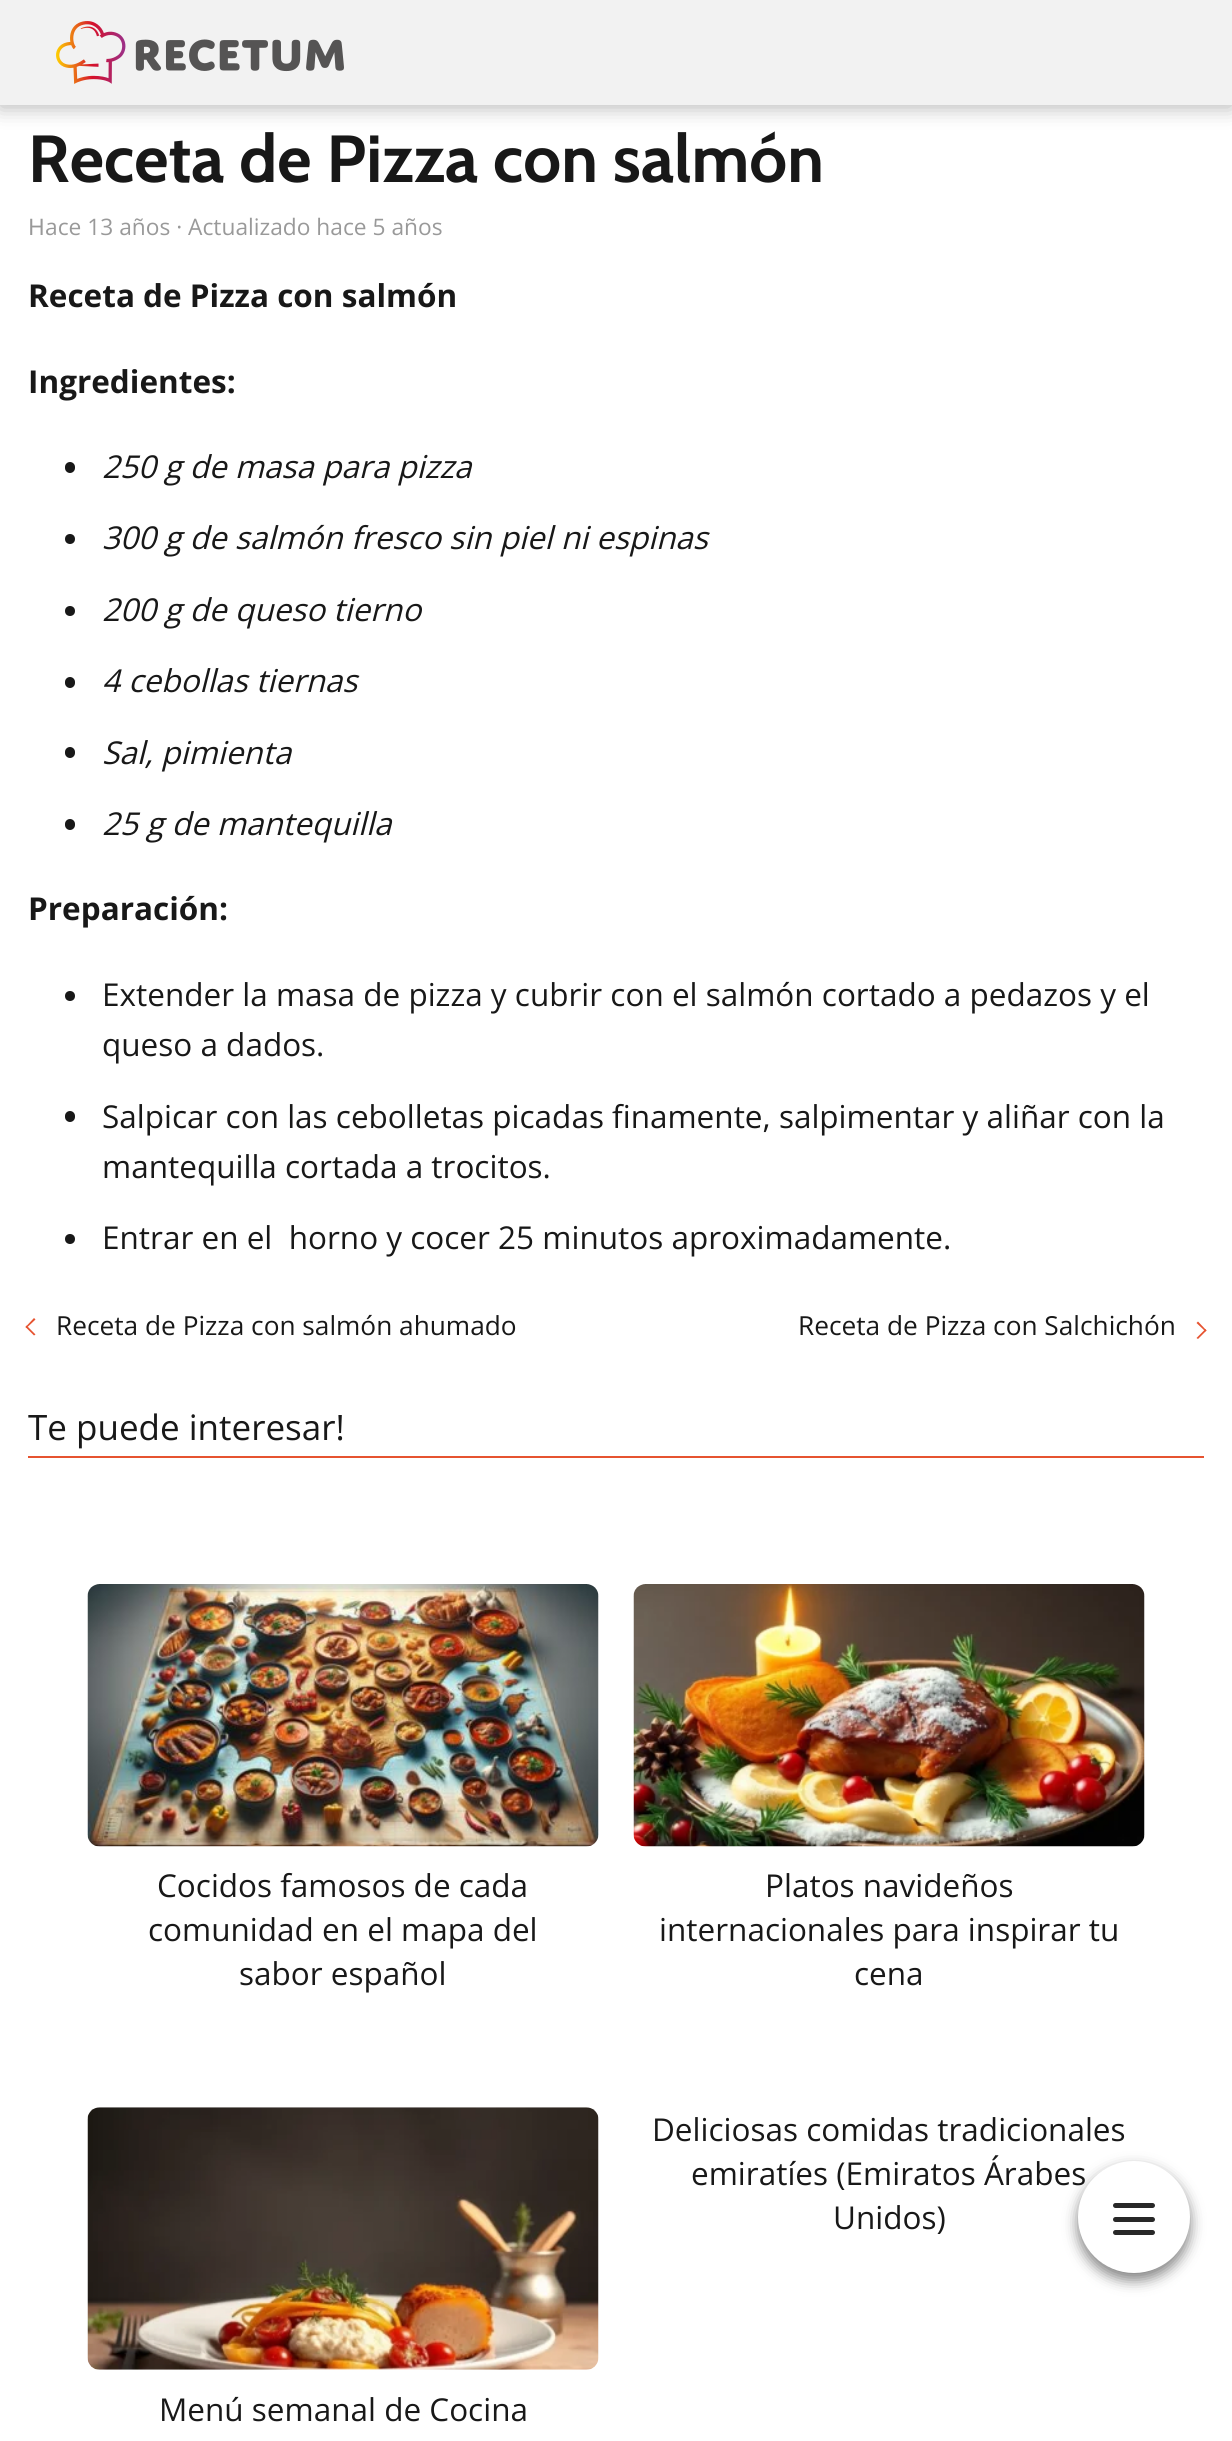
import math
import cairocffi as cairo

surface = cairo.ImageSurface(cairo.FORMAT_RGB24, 1232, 2441)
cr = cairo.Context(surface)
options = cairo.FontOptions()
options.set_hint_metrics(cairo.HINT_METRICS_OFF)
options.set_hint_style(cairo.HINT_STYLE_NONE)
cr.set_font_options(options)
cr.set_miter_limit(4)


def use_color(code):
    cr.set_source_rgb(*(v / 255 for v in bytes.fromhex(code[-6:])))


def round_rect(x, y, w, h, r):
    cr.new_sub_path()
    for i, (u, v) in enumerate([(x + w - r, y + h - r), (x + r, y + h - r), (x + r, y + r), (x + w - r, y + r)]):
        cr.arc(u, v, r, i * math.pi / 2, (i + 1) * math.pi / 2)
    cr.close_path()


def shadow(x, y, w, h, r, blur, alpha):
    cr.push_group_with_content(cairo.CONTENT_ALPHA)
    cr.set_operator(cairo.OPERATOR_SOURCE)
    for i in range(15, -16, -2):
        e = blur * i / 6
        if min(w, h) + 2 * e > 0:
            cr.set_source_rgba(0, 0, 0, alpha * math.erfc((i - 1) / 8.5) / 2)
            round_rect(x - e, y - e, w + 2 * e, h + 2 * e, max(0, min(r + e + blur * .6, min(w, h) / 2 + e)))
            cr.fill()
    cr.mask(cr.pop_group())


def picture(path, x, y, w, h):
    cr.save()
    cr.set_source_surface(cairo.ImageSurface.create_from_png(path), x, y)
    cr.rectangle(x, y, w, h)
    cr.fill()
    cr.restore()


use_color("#ffffff")
cr.paint()
use_color("#000000")
shadow(0, 2, 1232, 105, 0, 10.5, 0.3)
use_color("#f2f2f2")
cr.rectangle(0, 0, 1232, 105)
cr.fill()
picture("img1.png", 56, 21, 288, 63)
cr.select_font_face("Cabin", cairo.FONT_SLANT_NORMAL, cairo.FONT_WEIGHT_BOLD)
cr.set_font_size(66.5)
use_color("#181818")
cr.move_to(28, 182)
cr.show_text("Receta de Pizza con salmón")
cr.select_font_face("Noto Sans")
cr.set_font_size(22.75)
use_color("#999999")
cr.move_to(28, 235)
cr.show_text("H")
cr.select_font_face("Open Sans")
cr.move_to(45, 235)
cr.show_text("ace 13 años · Actualizado hace 5 años")
cr.select_font_face("Open Sans", cairo.FONT_SLANT_NORMAL, cairo.FONT_WEIGHT_BOLD)
cr.set_font_size(31.5)
use_color("#181818")
cr.move_to(28, 307)
cr.show_text("Receta de Pizza con salmón")
cr.move_to(28, 393)
cr.show_text("Ingredientes:")
round_rect(65, 462, 10, 11, 5)
cr.fill()
cr.select_font_face("Open Sans", cairo.FONT_SLANT_ITALIC)
cr.move_to(102, 478)
cr.show_text("250 g de masa para pizza")
cr.new_path()
cr.arc(70, 539, 5, 0, 2 * math.pi)
cr.fill()
cr.move_to(102, 549)
cr.show_text("300 g de salmón fresco sin piel ni espinas")
cr.new_path()
cr.arc(70, 611, 5, 0, 2 * math.pi)
cr.fill()
cr.move_to(102, 621)
cr.show_text("200 g de queso tierno")
round_rect(65, 677, 10, 11, 5)
cr.fill()
cr.move_to(102, 692)
cr.show_text("4 cebollas tiernas")
round_rect(65, 747, 10, 11, 5)
cr.fill()
cr.move_to(102, 764)
cr.show_text("Sal, pimienta")
round_rect(65, 819, 10, 11, 5)
cr.fill()
cr.move_to(102, 835)
cr.show_text("25 g de mantequilla")
cr.select_font_face("Open Sans", cairo.FONT_SLANT_NORMAL, cairo.FONT_WEIGHT_BOLD)
cr.move_to(28, 920)
cr.show_text("Preparación:")
cr.new_path()
cr.arc(70, 996, 5, 0, 2 * math.pi)
cr.fill()
cr.select_font_face("Open Sans")
cr.move_to(102, 1006)
cr.show_text("Extender la masa de pizza y cubrir con el salmón cortado a pedazos y el")
cr.move_to(102, 1056)
cr.show_text("queso a dados.")
round_rect(65, 1111, 10, 11, 5)
cr.fill()
cr.move_to(102, 1128)
cr.show_text("Salpicar con las cebolletas picadas finamente, salpimentar y aliñar con la")
cr.move_to(102, 1178)
cr.show_text("mantequilla cortada a trocitos.")
cr.new_path()
cr.arc(70, 1239, 5, 0, 2 * math.pi)
cr.fill()
cr.move_to(102, 1249)
cr.show_text("Entrar en el  horno y cocer 25 minutos aproximadamente.")
use_color("#e65330")
cr.new_path()
cr.move_to(35.5, 1334.5)
cr.line_to(34, 1335.5)
cr.line_to(25.5, 1327)
cr.line_to(26.5, 1325.5)
cr.close_path()
cr.fill()
cr.new_path()
cr.move_to(35.5, 1319.5)
cr.line_to(26.5, 1328)
cr.line_to(25.5, 1327)
cr.line_to(34, 1318)
cr.close_path()
cr.fill()
cr.set_font_size(26.25)
use_color("#181818")
cr.move_to(56, 1335)
cr.show_text("Receta de Pizza con salmón ahumado")
cr.move_to(798, 1335)
cr.show_text("Receta de Pizza con Salchichón")
use_color("#e65330")
cr.new_path()
cr.move_to(1196.5, 1323)
cr.line_to(1198, 1321.5)
cr.line_to(1206.5, 1330.5)
cr.line_to(1205.5, 1331.5)
cr.close_path()
cr.fill()
cr.new_path()
cr.move_to(1196.5, 1338)
cr.line_to(1205.5, 1329)
cr.line_to(1206.5, 1330.5)
cr.line_to(1198, 1339)
cr.close_path()
cr.fill()
cr.rectangle(28, 1456, 1176, 2)
cr.fill()
cr.set_font_size(35)
use_color("#181818")
cr.move_to(28, 1440)
cr.show_text("Te puede interesar!")
picture("img2.png", 87, 1584, 512, 263)
cr.set_font_size(31.5)
cr.move_to(157, 1897)
cr.show_text("Cocidos famosos de cada")
cr.move_to(148, 1941)
cr.show_text("comunidad en el mapa del")
cr.move_to(239, 1985)
cr.show_text("sabor español")
picture("img3.png", 633, 1584, 512, 263)
cr.move_to(765, 1897)
cr.show_text("Platos navideños")
cr.move_to(659, 1941)
cr.show_text("internacionales para inspirar tu")
cr.move_to(854, 1985)
cr.show_text("cena")
cr.move_to(652, 2141)
cr.show_text("Deliciosas comidas tradicionales")
cr.move_to(691, 2185)
cr.show_text("emiratíes (Emiratos Árabes")
cr.move_to(833, 2229)
cr.show_text("Unidos)")
picture("img4.png", 87, 2107, 512, 263)
cr.move_to(159, 2421)
cr.show_text("Menú semanal de Cocina")
use_color("#000000")
shadow(1078, 2168, 112, 112, 56, 7, 0.5)
use_color("#ffffff")
cr.arc(1134, 2217, 56, 0, 2 * math.pi)
cr.fill()
use_color("#282828")
round_rect(1113, 2203, 42, 5, 2.5)
cr.fill()
round_rect(1113, 2217, 42, 5, 2.5)
cr.fill()
round_rect(1113, 2230, 42, 5, 2.5)
cr.fill()
surface.write_to_png("result.png")
